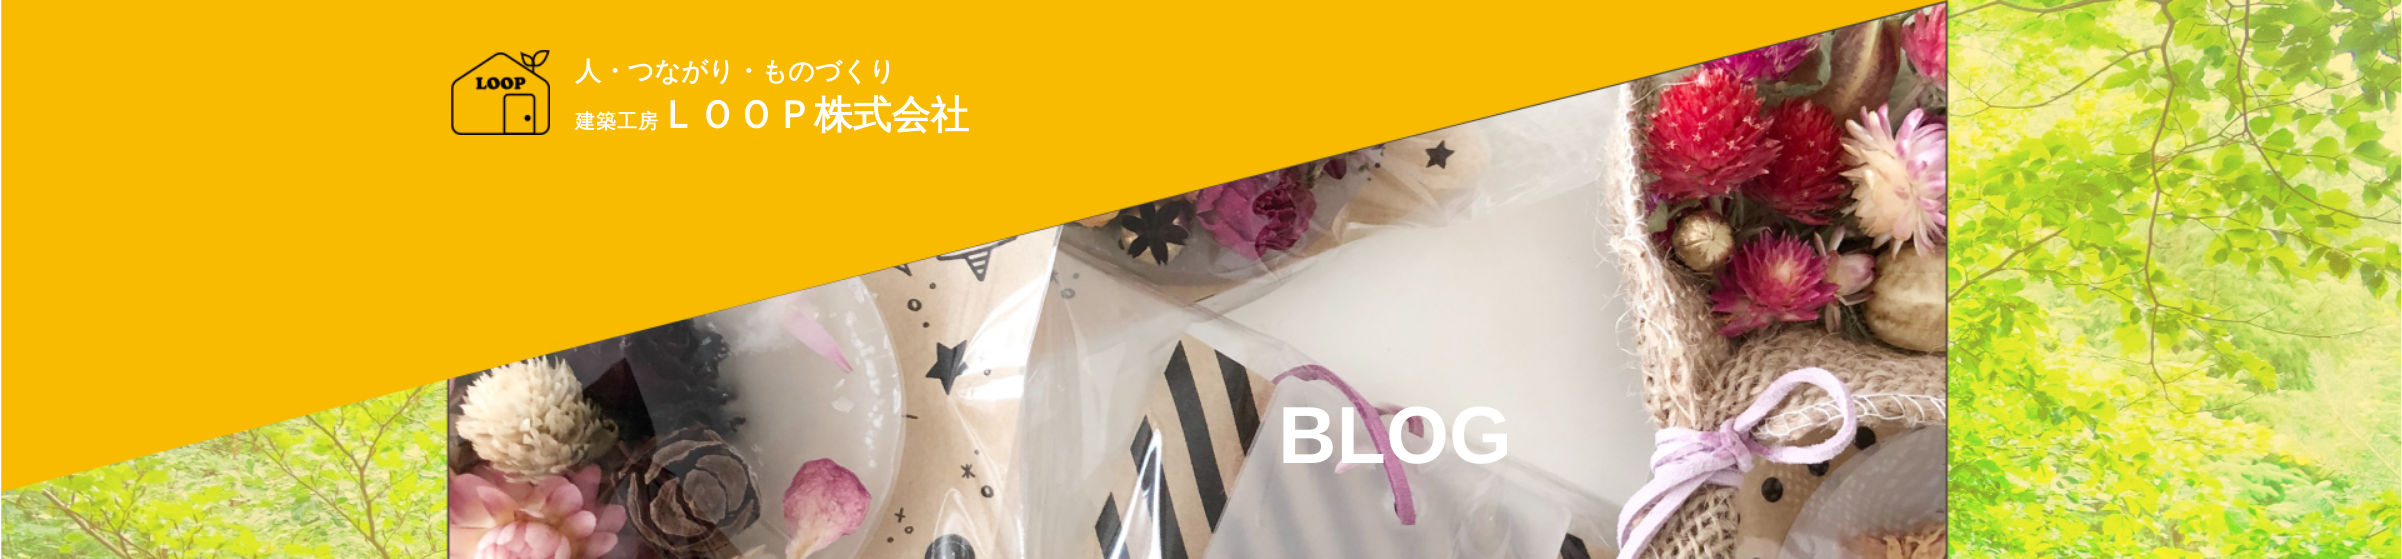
import math
import cairocffi as cairo

surface = cairo.ImageSurface(cairo.FORMAT_RGB24, 2402, 559)
cr = cairo.Context(surface)
options = cairo.FontOptions()
options.set_hint_metrics(cairo.HINT_METRICS_OFF)
options.set_hint_style(cairo.HINT_STYLE_NONE)
cr.set_font_options(options)
cr.set_miter_limit(4)


def use_color(code):
    cr.set_source_rgb(*(v / 255 for v in bytes.fromhex(code[-6:])))


def spaced_text(x, y, s, letter, word):
    cr.move_to(x, y)
    for ch in s:
        cr.show_text(ch)
        cr.rel_move_to(letter + word * (ch == ' '), 0)


def picture(path, x, y, w, h):
    cr.save()
    cr.set_source_surface(cairo.ImageSurface.create_from_png(path), x, y)
    cr.rectangle(x, y, w, h)
    cr.fill()
    cr.restore()


use_color("#ffffff")
cr.paint()
picture("img2.png", 1, 0, 2401, 559)
picture("img1.png", 451, 49, 99, 86)
cr.select_font_face("WenQuanYi Zen Hei", cairo.FONT_SLANT_NORMAL, cairo.FONT_WEIGHT_BOLD)
cr.set_font_size(26.25)
use_color("#ffffff")
cr.move_to(575, 80)
cr.show_text("人・つながり・ものづくり")
cr.set_font_size(20)
spaced_text(575, 128, "建築工房", 1, 0)
cr.set_font_size(38.75)
cr.move_to(659, 128)
cr.show_text("ＬＯＯＰ株式会社")
cr.select_font_face("Liberation Sans", cairo.FONT_SLANT_NORMAL, cairo.FONT_WEIGHT_BOLD)
cr.set_font_size(81)
cr.move_to(1278, 463)
cr.show_text("BLOG")
surface.write_to_png("result.png")
